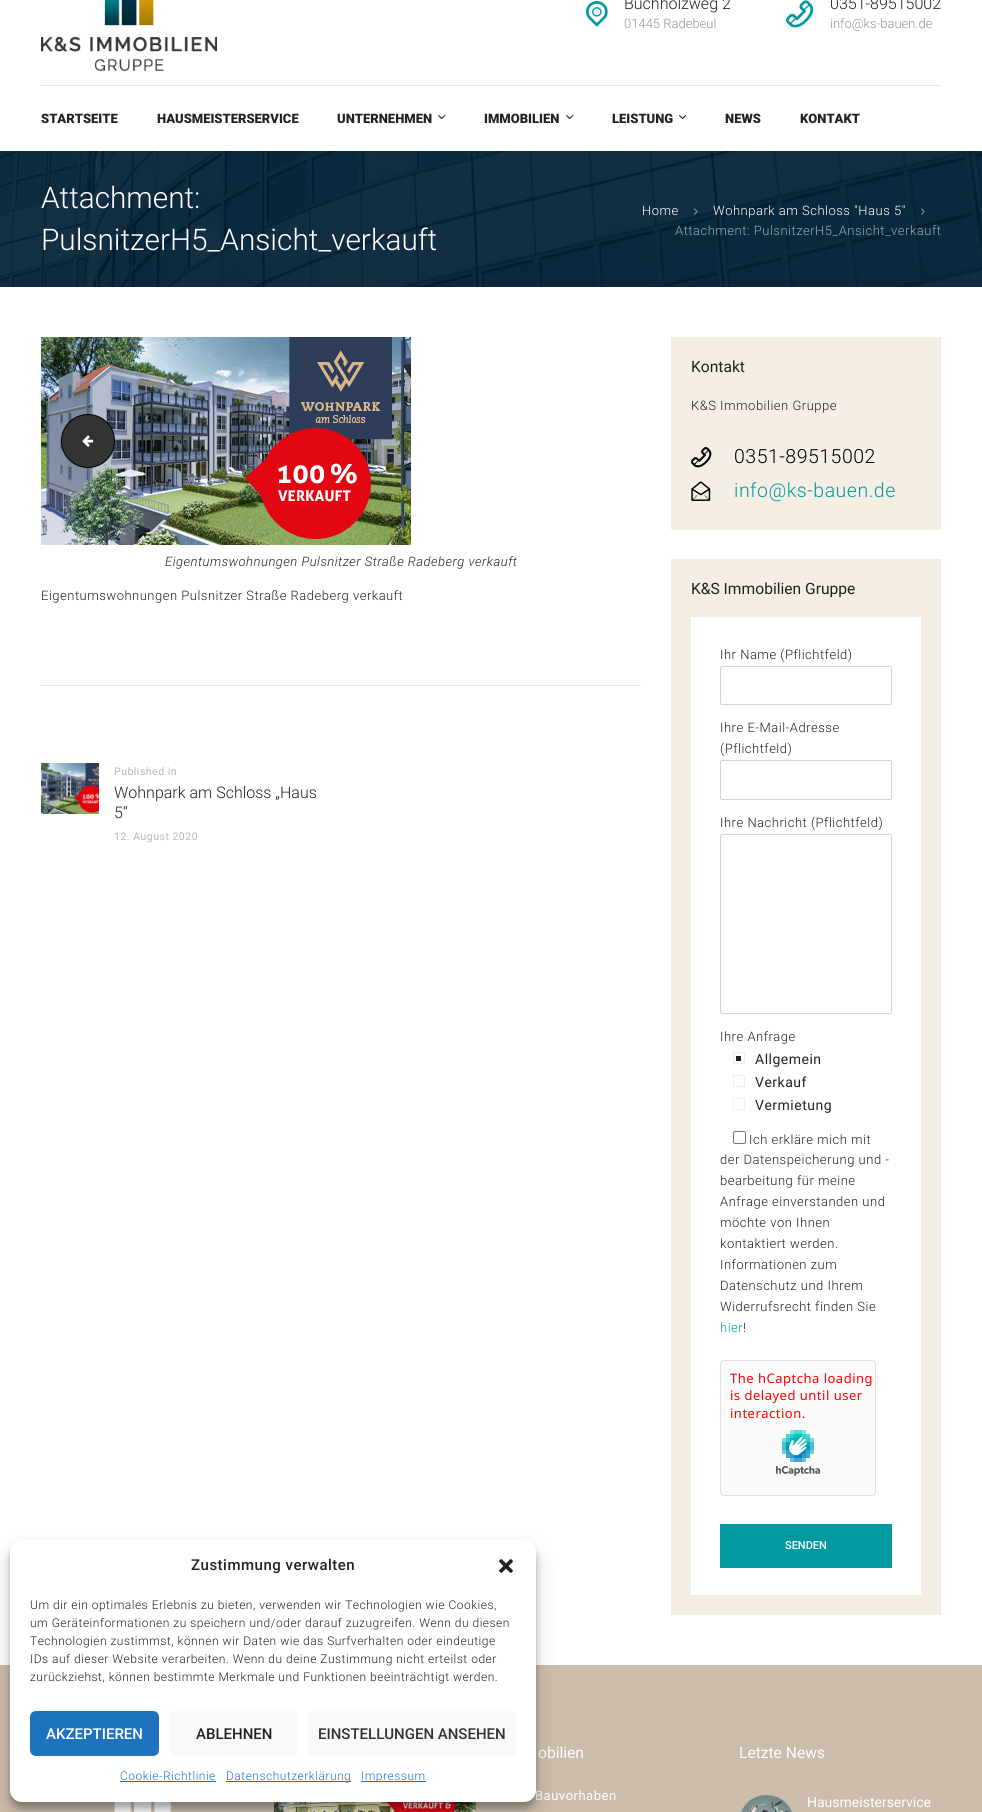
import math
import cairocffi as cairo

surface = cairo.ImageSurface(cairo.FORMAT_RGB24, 982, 1812)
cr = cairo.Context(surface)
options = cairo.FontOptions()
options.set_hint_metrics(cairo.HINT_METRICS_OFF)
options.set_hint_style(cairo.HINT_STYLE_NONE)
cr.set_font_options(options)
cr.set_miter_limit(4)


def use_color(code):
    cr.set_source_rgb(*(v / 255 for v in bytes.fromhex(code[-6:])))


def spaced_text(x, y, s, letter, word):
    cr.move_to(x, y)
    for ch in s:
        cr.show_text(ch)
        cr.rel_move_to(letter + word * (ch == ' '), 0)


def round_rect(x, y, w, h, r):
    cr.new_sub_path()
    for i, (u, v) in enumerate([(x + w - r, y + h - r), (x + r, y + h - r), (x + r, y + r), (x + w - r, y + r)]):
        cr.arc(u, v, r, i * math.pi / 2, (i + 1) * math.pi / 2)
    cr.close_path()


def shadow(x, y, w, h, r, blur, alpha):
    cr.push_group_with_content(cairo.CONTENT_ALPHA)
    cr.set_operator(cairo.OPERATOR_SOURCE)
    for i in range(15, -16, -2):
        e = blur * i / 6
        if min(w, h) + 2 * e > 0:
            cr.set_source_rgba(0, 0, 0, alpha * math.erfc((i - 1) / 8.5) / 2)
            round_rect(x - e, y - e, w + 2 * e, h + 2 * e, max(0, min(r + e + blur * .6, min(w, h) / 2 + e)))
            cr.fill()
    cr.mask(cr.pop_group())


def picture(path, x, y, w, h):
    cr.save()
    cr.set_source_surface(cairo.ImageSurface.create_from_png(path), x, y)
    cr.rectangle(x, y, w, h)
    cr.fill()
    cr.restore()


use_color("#ffffff")
cr.paint()
picture("img1.png", 41, 0, 176, 71)
picture("img2.png", 586, 1, 22, 26)
cr.select_font_face("Roboto Light")
cr.set_font_size(16)
use_color("#222222")
cr.move_to(624, 9)
cr.show_text("Buchholzweg 2")
cr.set_font_size(13)
use_color("#949494")
cr.move_to(624, 28)
cr.show_text("01445 Radebeul")
picture("img3.png", 786, 0, 28, 28)
cr.set_font_size(16)
use_color("#222222")
cr.move_to(830, 9)
cr.show_text("0351-89515002")
cr.set_font_size(13)
use_color("#949494")
cr.move_to(830, 28)
cr.show_text("info@ks-bauen.de")
use_color("#e5e7e7")
cr.rectangle(41, 85, 900, 1)
cr.fill()
cr.select_font_face("Roboto Black")
use_color("#222222")
cr.move_to(41, 123)
cr.show_text("STARTSEITE")
cr.move_to(157, 123)
cr.show_text("HAUSMEISTERSERVICE")
cr.move_to(337, 123)
cr.show_text("UNTERNEHMEN")
picture("img4.png", 438, 115, 8, 5)
cr.move_to(484, 123)
cr.show_text("IMMOBILIEN")
picture("img4.png", 566, 115, 8, 5)
cr.move_to(612, 123)
cr.show_text("LEISTUNG")
picture("img4.png", 679, 115, 8, 5)
cr.move_to(725, 123)
cr.show_text("NEWS")
cr.move_to(800, 123)
cr.show_text("KONTAKT")
picture("img5.png", 0, 151, 982, 136)
cr.select_font_face("Roboto Light")
cr.set_font_size(29.75)
use_color("#ffffff")
cr.move_to(41, 208)
cr.show_text("Attachment:")
cr.move_to(41, 250)
cr.show_text("PulsnitzerH5_Ansicht_verkauft")
cr.set_font_size(13)
spaced_text(642, 215, "Home", 0.5, 0)
picture("img6.png", 694, 208, 4, 7)
spaced_text(713, 215, "Wohnpark am Schloss \"Haus 5\"", 0.5, 0)
picture("img7.png", 921, 208, 4, 7)
use_color("#9da9b1")
spaced_text(675, 235, "Attachment: PulsnitzerH5_Ansicht_verkauft", 0.5, 0)
picture("img8.png", 41, 337, 370, 208)
use_color("#333333")
cr.arc(88, 441, 26.5, 0, 2 * math.pi)
cr.fill_preserve()
use_color("#000000")
cr.set_line_width(1)
cr.stroke()
picture("img9.png", 82, 435, 12, 12)
cr.select_font_face("Roboto Light", cairo.FONT_SLANT_ITALIC)
use_color("#222222")
spaced_text(165, 566, "Eigentumswohnungen Pulsnitzer Straße Radeberg verkauft", 0.5, 0)
cr.select_font_face("Roboto Light")
spaced_text(41, 600, "Eigentumswohnungen Pulsnitzer Straße Radeberg verkauft", 0.5, 0)
use_color("#e5e7e7")
cr.rectangle(41, 685, 600, 1)
cr.fill()
picture("img10.png", 41, 763, 58, 51)
cr.select_font_face("Roboto")
cr.set_font_size(10.5)
use_color("#b7b7b7")
spaced_text(114, 775, "Published in", 0.5, 0)
cr.select_font_face("Roboto Light")
cr.set_font_size(16)
use_color("#222222")
cr.move_to(114, 798)
cr.show_text("Wohnpark am Schloss „Haus")
cr.move_to(114, 818)
cr.show_text("5“")
cr.select_font_face("Roboto")
cr.set_font_size(10.5)
use_color("#b7b7b7")
spaced_text(114, 840, "12. August 2020", 0.5, 0)
use_color("#f5eee5")
cr.rectangle(671, 337, 270, 193)
cr.fill()
cr.set_font_size(15.6)
use_color("#222222")
cr.move_to(691, 372)
cr.show_text("Kontakt")
cr.select_font_face("Roboto Light")
cr.set_font_size(13)
spaced_text(691, 410, "K&S Immobilien Gruppe", 0.5, 0)
picture("img11.png", 691, 447, 21, 21)
cr.set_font_size(19.5)
use_color("#000000")
spaced_text(734, 463, "0351-89515002", 0.5, 0)
picture("img12.png", 691, 481, 20, 20)
use_color("#009a9f")
spaced_text(734, 497, "info@ks-bauen.de", 0.5, 0)
use_color("#f5eee5")
cr.rectangle(671, 559, 270, 1056)
cr.fill()
cr.select_font_face("Roboto")
cr.set_font_size(15.6)
use_color("#222222")
cr.move_to(691, 594)
cr.show_text("K&S Immobilien Gruppe")
use_color("#ffffff")
cr.rectangle(691, 617, 230, 978)
cr.fill()
cr.select_font_face("Roboto Light")
cr.set_font_size(13)
use_color("#222222")
spaced_text(720, 659, "Ihr Name (Pflichtfeld)", 0.5, 0)
round_rect(720.5, 666.5, 171, 38, 1.5)
use_color("#d0d7d8")
cr.stroke()
use_color("#222222")
spaced_text(720, 732, "Ihre E-Mail-Adresse", 0.5, 0)
spaced_text(720, 753, "(Pflichtfeld)", 0.5, 0)
round_rect(720.5, 760.5, 171, 39, 1.5)
use_color("#d0d7d8")
cr.stroke()
use_color("#222222")
spaced_text(720, 827, "Ihre Nachricht (Pflichtfeld)", 0.5, 0)
round_rect(720.5, 834.5, 171, 179, 1.5)
use_color("#d0d7d8")
cr.stroke()
use_color("#222222")
spaced_text(720, 1041, "Ihre Anfrage", 0.5, 0)
cr.rectangle(733.5, 1052.5, 11, 11)
use_color("#eeeeee")
cr.stroke()
use_color("#222222")
cr.rectangle(736, 1056, 5, 5)
cr.fill()
cr.select_font_face("Roboto")
cr.set_font_size(14)
spaced_text(755, 1064, "Allgemein", 0.5, 0)
cr.rectangle(733.5, 1075.5, 11, 11)
use_color("#eeeeee")
cr.stroke()
use_color("#222222")
spaced_text(755, 1087, "Verkauf", 0.5, 0)
cr.rectangle(733.5, 1098.5, 11, 11)
use_color("#eeeeee")
cr.stroke()
use_color("#222222")
spaced_text(755, 1110, "Vermietung", 0.5, 0)
round_rect(733.5, 1131.5, 12, 12, 1.5)
use_color("#767676")
cr.stroke()
cr.select_font_face("Roboto Light")
cr.set_font_size(13)
use_color("#222222")
spaced_text(749, 1144, "Ich erkläre mich mit", 0.5, 0)
spaced_text(720, 1164, "der Datenspeicherung und -", 0.5, 0)
spaced_text(720, 1185, "bearbeitung für meine", 0.5, 0)
spaced_text(720, 1206, "Anfrage einverstanden und", 0.5, 0)
spaced_text(720, 1227, "möchte von Ihnen", 0.5, 0)
spaced_text(720, 1248, "kontaktiert werden.", 0.5, 0)
spaced_text(720, 1269, "Informationen zum", 0.5, 0)
spaced_text(720, 1290, "Datenschutz und Ihrem", 0.5, 0)
spaced_text(720, 1311, "Widerrufsrecht finden Sie", 0.5, 0)
use_color("#009a9f")
spaced_text(720, 1332, "hier", 0.5, 0)
use_color("#222222")
spaced_text(743, 1332, "!", 0.5, 0)
use_color("#fafafa")
round_rect(720, 1360, 156, 136, 4)
cr.fill()
picture("img13.png", 776, 1430, 44, 46)
round_rect(720.5, 1360.5, 155, 135, 3.5)
use_color("#e0e0e0")
cr.stroke()
cr.select_font_face("Noto Sans")
use_color("#ff0000")
spaced_text(730, 1383, "The hCaptcha loading", 0.5, 0)
spaced_text(730, 1400, "is delayed until user", 0.5, 0)
spaced_text(730, 1418, "interaction.", 0.5, 0)
use_color("#009a9f")
cr.rectangle(720, 1524, 172, 44)
cr.fill()
cr.select_font_face("Roboto Medium")
cr.set_font_size(11)
use_color("#ffffff")
cr.move_to(785, 1549)
cr.show_text("SENDEN")
use_color("#ccbcab")
cr.rectangle(0, 1665, 982, 147)
cr.fill()
picture("img14.png", 114, 1802, 58, 10)
picture("img15.png", 274, 1802, 202, 10)
cr.select_font_face("Roboto")
cr.set_font_size(15.6)
use_color("#ffffff")
cr.move_to(538, 1758)
cr.show_text("obilien")
cr.set_font_size(13)
spaced_text(535, 1800, "Bauvorhaben", 0.5, 0)
cr.set_font_size(15.6)
cr.move_to(739, 1758)
cr.show_text("Letzte News")
picture("img16.png", 741, 1795, 51, 17)
cr.set_font_size(14)
cr.move_to(807, 1807)
cr.show_text("Hausmeisterservice")
use_color("#000000")
shadow(10, 1546, 526, 262, 12, 3, 0.23)
shadow(10, 1550, 526, 262, 12, 10, 0.19)
use_color("#ffffff")
round_rect(10, 1540, 526, 262, 12)
cr.fill()
cr.select_font_face("Roboto Medium")
cr.set_font_size(15)
use_color("#222222")
spaced_text(191, 1570, "Zustimmung verwalten", 0.5, 0)
picture("img17.png", 499, 1559, 14, 14)
cr.select_font_face("Roboto Light")
cr.set_font_size(12)
spaced_text(30, 1609, "Um dir ein optimales Erlebnis zu bieten, verwenden wir Technologien wie Cookies,", 0.5, 0)
spaced_text(30, 1627, "um Geräteinformationen zu speichern und/oder darauf zuzugreifen. Wenn du diesen", 0.5, 0)
spaced_text(30, 1645, "Technologien zustimmst, können wir Daten wie das Surfverhalten oder eindeutige", 0.5, 0)
spaced_text(30, 1663, "IDs auf dieser Website verarbeiten. Wenn du deine Zustimmung nicht erteilst oder", 0.5, 0)
spaced_text(30, 1681, "zurückziehst, können bestimmte Merkmale und Funktionen beeinträchtigt werden.", 0.5, 0)
use_color("#1e73be")
round_rect(30, 1711, 129, 45, 6)
cr.fill()
cr.select_font_face("Roboto Medium")
cr.set_font_size(15)
use_color("#ffffff")
cr.move_to(46, 1739)
cr.show_text("AKZEPTIEREN")
use_color("#f9f9f9")
round_rect(169, 1711, 129, 45, 6)
cr.fill()
use_color("#222222")
cr.move_to(196, 1739)
cr.show_text("ABLEHNEN")
use_color("#f9f9f9")
round_rect(308, 1711, 208, 45, 6)
cr.fill()
use_color("#333333")
cr.move_to(318, 1739)
cr.show_text("EINSTELLUNGEN ANSEHEN")
cr.select_font_face("Roboto Light")
cr.set_font_size(12)
use_color("#1e73be")
spaced_text(120, 1780, "Cookie-Richtlinie", 0.5, 0)
cr.rectangle(120, 1781, 96, 1)
cr.fill()
cr.rectangle(226, 1781, 125, 1)
cr.fill()
spaced_text(226, 1780, "Datenschutzerklärung", 0.5, 0)
cr.rectangle(361, 1781, 65, 1)
cr.fill()
spaced_text(361, 1780, "Impressum", 0.5, 0)
surface.write_to_png("result.png")
